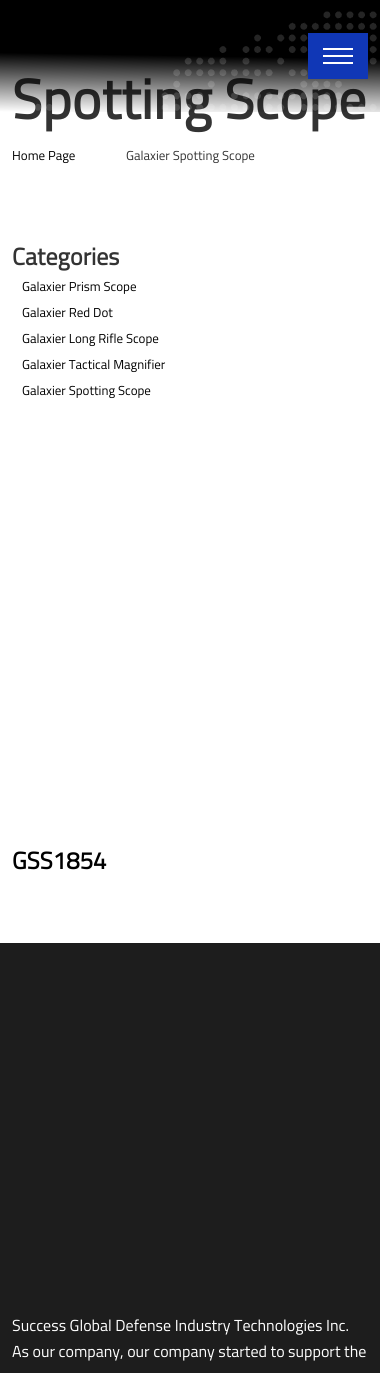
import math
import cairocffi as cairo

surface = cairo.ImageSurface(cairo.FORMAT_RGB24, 380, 1373)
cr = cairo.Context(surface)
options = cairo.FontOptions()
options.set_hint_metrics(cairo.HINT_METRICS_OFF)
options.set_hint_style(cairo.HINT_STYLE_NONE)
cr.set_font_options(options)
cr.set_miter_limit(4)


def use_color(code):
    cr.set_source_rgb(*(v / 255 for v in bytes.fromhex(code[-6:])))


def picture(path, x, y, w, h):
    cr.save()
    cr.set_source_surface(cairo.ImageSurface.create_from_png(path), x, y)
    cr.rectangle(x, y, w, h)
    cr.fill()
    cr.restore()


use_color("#ffffff")
cr.paint()
cr.select_font_face("Titillium Web", cairo.FONT_SLANT_NORMAL, cairo.FONT_WEIGHT_BOLD)
cr.set_font_size(56)
use_color("#333333")
cr.move_to(12, 119)
cr.show_text("Spotting Scope")
gradient = cairo.LinearGradient(191, -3.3, 189, 115)
gradient.add_color_stop_rgba(0, 0, 0, 0, 1)
gradient.add_color_stop_rgba(0.5, 0, 0, 0, 1)
gradient.add_color_stop_rgba(1, 0, 0, 0, 0)
cr.set_source(gradient)
cr.rectangle(0, 0, 380, 112)
cr.fill()
picture("img1.png", 35, 11, 342, 100)
use_color("#1037b6")
cr.rectangle(308, 33, 60, 46)
cr.fill()
use_color("#ffffff")
cr.rectangle(323, 48, 30, 2)
cr.fill()
cr.rectangle(323, 55, 30, 2)
cr.fill()
cr.rectangle(323, 62, 30, 2)
cr.fill()
cr.select_font_face("Titillium Web")
cr.set_font_size(13)
use_color("#000000")
cr.move_to(12, 160)
cr.show_text("Home Page")
use_color("#333333")
cr.move_to(126, 160)
cr.show_text("Galaxier Spotting Scope")
cr.select_font_face("Titillium Web", cairo.FONT_SLANT_NORMAL, cairo.FONT_WEIGHT_BOLD)
cr.set_font_size(24)
cr.move_to(12, 265)
cr.show_text("Categories")
cr.select_font_face("Titillium Web")
cr.set_font_size(13)
use_color("#000000")
cr.move_to(22, 291)
cr.show_text("Galaxier Prism Scope")
cr.move_to(22, 317)
cr.show_text("Galaxier Red Dot")
cr.move_to(22, 343)
cr.show_text("Galaxier Long Rifle Scope")
cr.move_to(22, 369)
cr.show_text("Galaxier Tactical Magnifier")
cr.move_to(22, 395)
cr.show_text("Galaxier Spotting Scope")
cr.select_font_face("Titillium Web", cairo.FONT_SLANT_NORMAL, cairo.FONT_WEIGHT_BOLD)
cr.set_font_size(24)
cr.move_to(12, 869)
cr.show_text("GSS1854")
use_color("#1d1d1d")
cr.rectangle(0, 943, 380, 430)
cr.fill()
cr.select_font_face("Titillium Web")
cr.set_font_size(16)
use_color("#ffffff")
cr.move_to(12, 1331)
cr.show_text("Success Global Defense Industry Technologies Inc.")
cr.move_to(12, 1357)
cr.show_text("As our company, our company started to support the")
surface.write_to_png("result.png")
